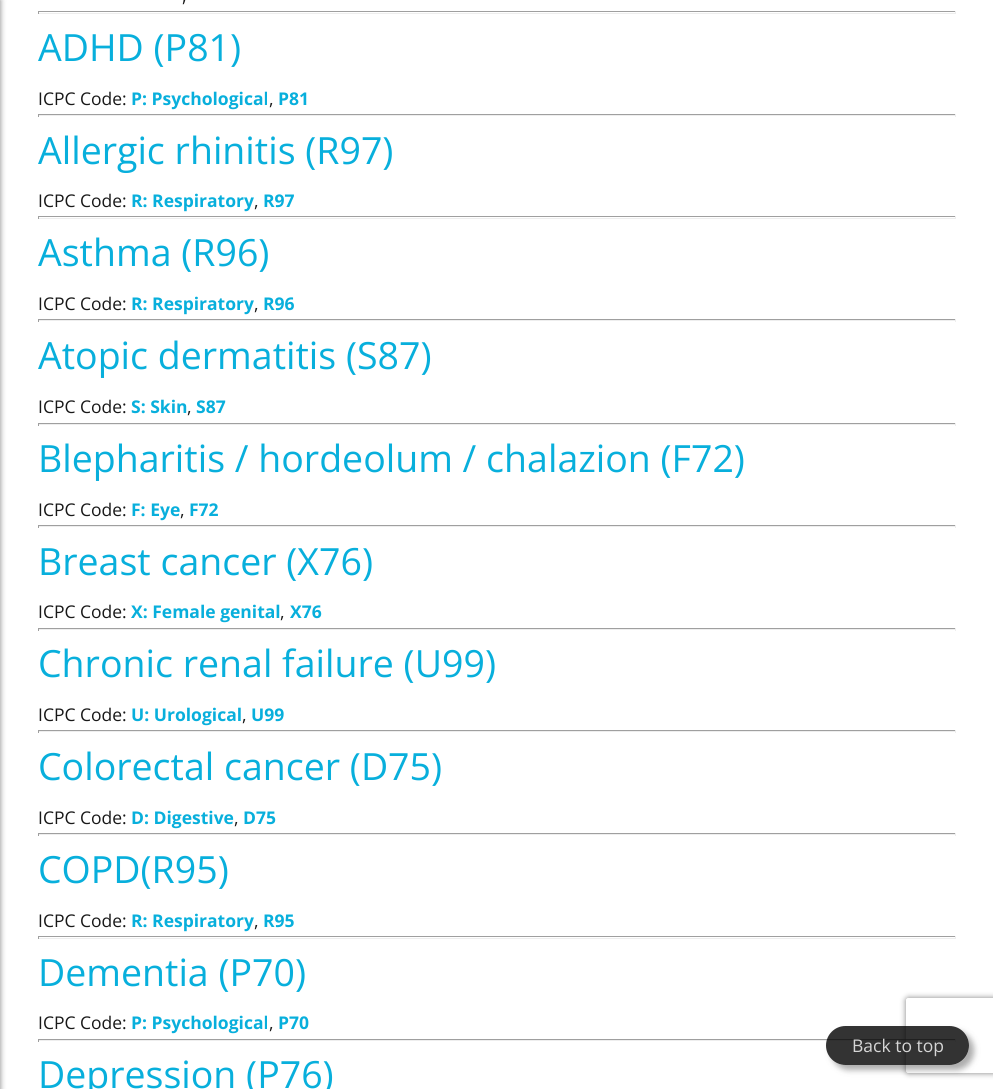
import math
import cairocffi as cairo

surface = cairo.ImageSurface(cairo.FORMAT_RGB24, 993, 1089)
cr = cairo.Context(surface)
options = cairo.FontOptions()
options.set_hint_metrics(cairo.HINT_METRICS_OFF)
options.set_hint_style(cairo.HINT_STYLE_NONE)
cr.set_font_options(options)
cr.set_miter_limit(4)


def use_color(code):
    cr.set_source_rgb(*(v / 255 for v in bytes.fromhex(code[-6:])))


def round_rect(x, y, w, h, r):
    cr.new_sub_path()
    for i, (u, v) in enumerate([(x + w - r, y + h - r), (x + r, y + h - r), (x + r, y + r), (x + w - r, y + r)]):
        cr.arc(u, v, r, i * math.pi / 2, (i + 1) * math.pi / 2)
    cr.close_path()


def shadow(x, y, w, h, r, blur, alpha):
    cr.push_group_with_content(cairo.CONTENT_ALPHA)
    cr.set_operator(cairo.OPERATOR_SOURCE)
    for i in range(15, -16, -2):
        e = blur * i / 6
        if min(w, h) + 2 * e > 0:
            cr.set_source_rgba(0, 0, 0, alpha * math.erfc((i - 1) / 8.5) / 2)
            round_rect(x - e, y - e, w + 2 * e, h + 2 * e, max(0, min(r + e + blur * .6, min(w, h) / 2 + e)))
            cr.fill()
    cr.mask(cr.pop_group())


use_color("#ffffff")
cr.paint()
use_color("#000000")
shadow(-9, 0, 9, 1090, 0, 3, 0.5)
cr.select_font_face("Open Sans")
cr.set_font_size(17.5)
use_color("#181818")
cr.move_to(182, 2)
cr.show_text(",")
use_color("#9f9f9f")
cr.rectangle(38, 11, 918, 1)
cr.fill()
use_color("#eeeeee")
cr.rectangle(955, 11, 1, 3)
cr.fill()
cr.rectangle(38, 13, 918, 1)
cr.fill()
use_color("#9f9f9f")
cr.rectangle(38, 11, 1, 3)
cr.fill()
cr.set_font_size(37.5)
use_color("#08afdc")
cr.move_to(38, 61)
cr.show_text("ADHD (P81)")
cr.set_font_size(17.5)
use_color("#181818")
cr.move_to(38, 105)
cr.show_text("ICPC Code:")
cr.select_font_face("Open Sans", cairo.FONT_SLANT_NORMAL, cairo.FONT_WEIGHT_BOLD)
use_color("#08afdc")
cr.move_to(131, 105)
cr.show_text("P: Psychological")
cr.select_font_face("Open Sans")
use_color("#181818")
cr.move_to(269, 105)
cr.show_text(",")
cr.select_font_face("Open Sans", cairo.FONT_SLANT_NORMAL, cairo.FONT_WEIGHT_BOLD)
use_color("#08afdc")
cr.move_to(278, 105)
cr.show_text("P81")
use_color("#9f9f9f")
cr.rectangle(38, 114, 918, 1)
cr.fill()
use_color("#eeeeee")
cr.rectangle(955, 114, 1, 3)
cr.fill()
cr.rectangle(38, 115, 918, 1)
cr.fill()
use_color("#9f9f9f")
cr.rectangle(38, 114, 1, 3)
cr.fill()
cr.select_font_face("Open Sans")
cr.set_font_size(37.5)
use_color("#08afdc")
cr.move_to(38, 164)
cr.show_text("Allergic rhinitis (R97)")
cr.set_font_size(17.5)
use_color("#181818")
cr.move_to(38, 207)
cr.show_text("ICPC Code:")
cr.select_font_face("Open Sans", cairo.FONT_SLANT_NORMAL, cairo.FONT_WEIGHT_BOLD)
use_color("#08afdc")
cr.move_to(131, 207)
cr.show_text("R: Respiratory")
cr.select_font_face("Open Sans")
use_color("#181818")
cr.move_to(254, 207)
cr.show_text(",")
cr.select_font_face("Open Sans", cairo.FONT_SLANT_NORMAL, cairo.FONT_WEIGHT_BOLD)
use_color("#08afdc")
cr.move_to(263, 207)
cr.show_text("R97")
use_color("#9f9f9f")
cr.rectangle(38, 216, 918, 1)
cr.fill()
use_color("#eeeeee")
cr.rectangle(955, 216, 1, 3)
cr.fill()
cr.rectangle(38, 218, 918, 1)
cr.fill()
use_color("#9f9f9f")
cr.rectangle(38, 216, 1, 3)
cr.fill()
cr.select_font_face("Open Sans")
cr.set_font_size(37.5)
use_color("#08afdc")
cr.move_to(38, 266)
cr.show_text("Asthma (R96)")
cr.set_font_size(17.5)
use_color("#181818")
cr.move_to(38, 310)
cr.show_text("ICPC Code:")
cr.select_font_face("Open Sans", cairo.FONT_SLANT_NORMAL, cairo.FONT_WEIGHT_BOLD)
use_color("#08afdc")
cr.move_to(131, 310)
cr.show_text("R: Respiratory")
cr.select_font_face("Open Sans")
use_color("#181818")
cr.move_to(254, 310)
cr.show_text(",")
cr.select_font_face("Open Sans", cairo.FONT_SLANT_NORMAL, cairo.FONT_WEIGHT_BOLD)
use_color("#08afdc")
cr.move_to(263, 310)
cr.show_text("R96")
use_color("#9f9f9f")
cr.rectangle(38, 319, 918, 1)
cr.fill()
use_color("#eeeeee")
cr.rectangle(955, 319, 1, 3)
cr.fill()
cr.rectangle(38, 320, 918, 1)
cr.fill()
use_color("#9f9f9f")
cr.rectangle(38, 319, 1, 3)
cr.fill()
cr.select_font_face("Open Sans")
cr.set_font_size(37.5)
use_color("#08afdc")
cr.move_to(38, 369)
cr.show_text("Atopic dermatitis (S87)")
cr.set_font_size(17.5)
use_color("#181818")
cr.move_to(38, 413)
cr.show_text("ICPC Code:")
cr.select_font_face("Open Sans", cairo.FONT_SLANT_NORMAL, cairo.FONT_WEIGHT_BOLD)
use_color("#08afdc")
cr.move_to(131, 413)
cr.show_text("S: Skin")
cr.select_font_face("Open Sans")
use_color("#181818")
cr.move_to(187, 413)
cr.show_text(",")
cr.select_font_face("Open Sans", cairo.FONT_SLANT_NORMAL, cairo.FONT_WEIGHT_BOLD)
use_color("#08afdc")
cr.move_to(196, 413)
cr.show_text("S87")
use_color("#9f9f9f")
cr.rectangle(38, 423, 918, 1)
cr.fill()
use_color("#eeeeee")
cr.rectangle(955, 423, 1, 3)
cr.fill()
cr.rectangle(38, 424, 918, 1)
cr.fill()
use_color("#9f9f9f")
cr.rectangle(38, 423, 1, 3)
cr.fill()
cr.select_font_face("Open Sans")
cr.set_font_size(37.5)
use_color("#08afdc")
cr.move_to(38, 472)
cr.show_text("Blepharitis / hordeolum / chalazion (F72)")
cr.set_font_size(17.5)
use_color("#181818")
cr.move_to(38, 516)
cr.show_text("ICPC Code:")
cr.select_font_face("Open Sans", cairo.FONT_SLANT_NORMAL, cairo.FONT_WEIGHT_BOLD)
use_color("#08afdc")
cr.move_to(131, 516)
cr.show_text("F: Eye")
cr.select_font_face("Open Sans")
use_color("#181818")
cr.move_to(180, 516)
cr.show_text(",")
cr.select_font_face("Open Sans", cairo.FONT_SLANT_NORMAL, cairo.FONT_WEIGHT_BOLD)
use_color("#08afdc")
cr.move_to(189, 516)
cr.show_text("F72")
use_color("#9f9f9f")
cr.rectangle(38, 525, 918, 1)
cr.fill()
use_color("#eeeeee")
cr.rectangle(955, 525, 1, 3)
cr.fill()
cr.rectangle(38, 526, 918, 1)
cr.fill()
use_color("#9f9f9f")
cr.rectangle(38, 525, 1, 3)
cr.fill()
cr.select_font_face("Open Sans")
cr.set_font_size(37.5)
use_color("#08afdc")
cr.move_to(38, 575)
cr.show_text("Breast cancer (X76)")
cr.set_font_size(17.5)
use_color("#181818")
cr.move_to(38, 618)
cr.show_text("ICPC Code:")
cr.select_font_face("Open Sans", cairo.FONT_SLANT_NORMAL, cairo.FONT_WEIGHT_BOLD)
use_color("#08afdc")
cr.move_to(131, 618)
cr.show_text("X: Female genital")
cr.select_font_face("Open Sans")
use_color("#181818")
cr.move_to(280, 618)
cr.show_text(",")
cr.select_font_face("Open Sans", cairo.FONT_SLANT_NORMAL, cairo.FONT_WEIGHT_BOLD)
use_color("#08afdc")
cr.move_to(290, 618)
cr.show_text("X76")
use_color("#9f9f9f")
cr.rectangle(38, 628, 918, 1)
cr.fill()
use_color("#eeeeee")
cr.rectangle(955, 628, 1, 3)
cr.fill()
cr.rectangle(38, 629, 918, 1)
cr.fill()
use_color("#9f9f9f")
cr.rectangle(38, 628, 1, 3)
cr.fill()
cr.select_font_face("Open Sans")
cr.set_font_size(37.5)
use_color("#08afdc")
cr.move_to(38, 677)
cr.show_text("Chronic renal failure (U99)")
cr.set_font_size(17.5)
use_color("#181818")
cr.move_to(38, 721)
cr.show_text("ICPC Code:")
cr.select_font_face("Open Sans", cairo.FONT_SLANT_NORMAL, cairo.FONT_WEIGHT_BOLD)
use_color("#08afdc")
cr.move_to(131, 721)
cr.show_text("U: Urological")
cr.select_font_face("Open Sans")
use_color("#181818")
cr.move_to(242, 721)
cr.show_text(",")
cr.select_font_face("Open Sans", cairo.FONT_SLANT_NORMAL, cairo.FONT_WEIGHT_BOLD)
use_color("#08afdc")
cr.move_to(251, 721)
cr.show_text("U99")
use_color("#9f9f9f")
cr.rectangle(38, 730, 918, 1)
cr.fill()
use_color("#eeeeee")
cr.rectangle(955, 730, 1, 3)
cr.fill()
cr.rectangle(38, 731, 918, 1)
cr.fill()
use_color("#9f9f9f")
cr.rectangle(38, 730, 1, 3)
cr.fill()
cr.select_font_face("Open Sans")
cr.set_font_size(37.5)
use_color("#08afdc")
cr.move_to(38, 780)
cr.show_text("Colorectal cancer (D75)")
cr.set_font_size(17.5)
use_color("#181818")
cr.move_to(38, 824)
cr.show_text("ICPC Code:")
cr.select_font_face("Open Sans", cairo.FONT_SLANT_NORMAL, cairo.FONT_WEIGHT_BOLD)
use_color("#08afdc")
cr.move_to(131, 824)
cr.show_text("D: Digestive")
cr.select_font_face("Open Sans")
use_color("#181818")
cr.move_to(234, 824)
cr.show_text(",")
cr.select_font_face("Open Sans", cairo.FONT_SLANT_NORMAL, cairo.FONT_WEIGHT_BOLD)
use_color("#08afdc")
cr.move_to(243, 824)
cr.show_text("D75")
use_color("#9f9f9f")
cr.rectangle(38, 833, 918, 1)
cr.fill()
use_color("#eeeeee")
cr.rectangle(955, 833, 1, 3)
cr.fill()
cr.rectangle(38, 834, 918, 1)
cr.fill()
use_color("#9f9f9f")
cr.rectangle(38, 833, 1, 3)
cr.fill()
cr.select_font_face("Open Sans")
cr.set_font_size(37.5)
use_color("#08afdc")
cr.move_to(38, 883)
cr.show_text("COPD(R95)")
cr.set_font_size(17.5)
use_color("#181818")
cr.move_to(38, 927)
cr.show_text("ICPC Code:")
cr.select_font_face("Open Sans", cairo.FONT_SLANT_NORMAL, cairo.FONT_WEIGHT_BOLD)
use_color("#08afdc")
cr.move_to(131, 927)
cr.show_text("R: Respiratory")
cr.select_font_face("Open Sans")
use_color("#181818")
cr.move_to(254, 927)
cr.show_text(",")
cr.select_font_face("Open Sans", cairo.FONT_SLANT_NORMAL, cairo.FONT_WEIGHT_BOLD)
use_color("#08afdc")
cr.move_to(263, 927)
cr.show_text("R95")
use_color("#9f9f9f")
cr.rectangle(38, 936, 918, 1)
cr.fill()
use_color("#eeeeee")
cr.rectangle(955, 936, 1, 3)
cr.fill()
cr.rectangle(38, 938, 918, 1)
cr.fill()
use_color("#9f9f9f")
cr.rectangle(38, 936, 1, 3)
cr.fill()
cr.select_font_face("Open Sans")
cr.set_font_size(37.5)
use_color("#08afdc")
cr.move_to(38, 986)
cr.show_text("Dementia (P70)")
cr.set_font_size(17.5)
use_color("#181818")
cr.move_to(38, 1029)
cr.show_text("ICPC Code:")
cr.select_font_face("Open Sans", cairo.FONT_SLANT_NORMAL, cairo.FONT_WEIGHT_BOLD)
use_color("#08afdc")
cr.move_to(131, 1029)
cr.show_text("P: Psychological")
cr.select_font_face("Open Sans")
use_color("#181818")
cr.move_to(269, 1029)
cr.show_text(",")
cr.select_font_face("Open Sans", cairo.FONT_SLANT_NORMAL, cairo.FONT_WEIGHT_BOLD)
use_color("#08afdc")
cr.move_to(278, 1029)
cr.show_text("P70")
use_color("#9f9f9f")
cr.rectangle(38, 1039, 918, 1)
cr.fill()
use_color("#eeeeee")
cr.rectangle(955, 1039, 1, 3)
cr.fill()
cr.rectangle(38, 1040, 918, 1)
cr.fill()
use_color("#9f9f9f")
cr.rectangle(38, 1039, 1, 3)
cr.fill()
cr.select_font_face("Open Sans")
cr.set_font_size(37.5)
use_color("#08afdc")
cr.move_to(38, 1088)
cr.show_text("Depression (P76)")
cr.save()
cr.set_fill_rule(cairo.FILL_RULE_EVEN_ODD)
cr.new_path()
cr.move_to(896, 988)
cr.line_to(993, 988)
cr.line_to(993, 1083)
cr.line_to(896, 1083)
cr.close_path()
cr.move_to(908.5, 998)
cr.line_to(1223.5, 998)
cr.curve_to(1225, 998, 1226, 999, 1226, 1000.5)
cr.line_to(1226, 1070.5)
cr.curve_to(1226, 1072, 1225, 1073, 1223.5, 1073)
cr.line_to(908.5, 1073)
cr.curve_to(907, 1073, 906, 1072, 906, 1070.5)
cr.line_to(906, 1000.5)
cr.curve_to(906, 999, 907, 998, 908.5, 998)
cr.close_path()
cr.clip()
use_color("#808080")
shadow(906, 998, 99, 75, 2.5, 3, 1)
cr.restore()
cr.save()
cr.set_fill_rule(cairo.FILL_RULE_EVEN_ODD)
cr.new_path()
cr.move_to(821, 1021)
cr.line_to(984, 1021)
cr.line_to(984, 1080)
cr.line_to(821, 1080)
cr.close_path()
cr.move_to(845.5, 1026)
cr.line_to(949.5, 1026)
cr.curve_to(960.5, 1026, 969, 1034.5, 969, 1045.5)
cr.curve_to(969, 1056.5, 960.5, 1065, 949.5, 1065)
cr.line_to(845.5, 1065)
cr.curve_to(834.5, 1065, 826, 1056.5, 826, 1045.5)
cr.curve_to(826, 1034.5, 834.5, 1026, 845.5, 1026)
cr.close_path()
cr.clip()
use_color("#323232")
shadow(831, 1031, 143, 39, 19.5, 3, 0.4)
cr.restore()
cr.set_source_rgba(0, 0, 0, 0.8)
round_rect(826, 1026, 143, 39, 19.5)
cr.fill()
cr.set_font_size(17.5)
use_color("#d6d6d6")
cr.move_to(852, 1052)
cr.show_text("Back to top")
surface.write_to_png("result.png")
